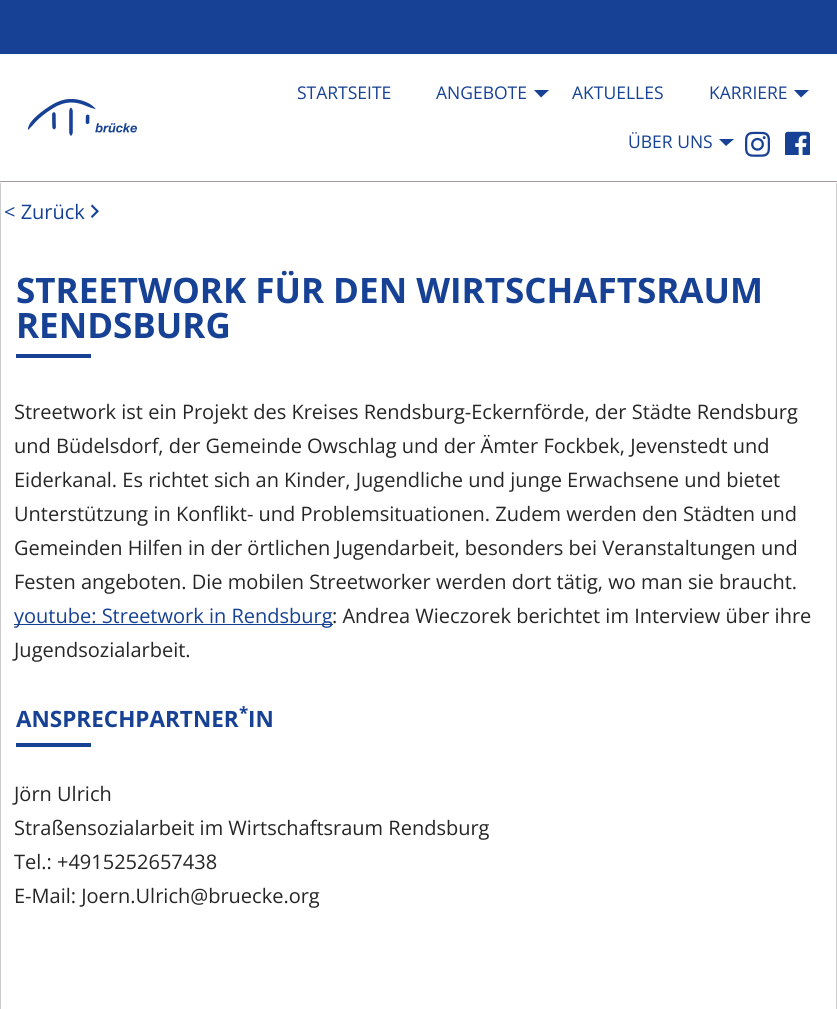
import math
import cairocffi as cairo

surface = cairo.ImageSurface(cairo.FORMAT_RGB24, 837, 1009)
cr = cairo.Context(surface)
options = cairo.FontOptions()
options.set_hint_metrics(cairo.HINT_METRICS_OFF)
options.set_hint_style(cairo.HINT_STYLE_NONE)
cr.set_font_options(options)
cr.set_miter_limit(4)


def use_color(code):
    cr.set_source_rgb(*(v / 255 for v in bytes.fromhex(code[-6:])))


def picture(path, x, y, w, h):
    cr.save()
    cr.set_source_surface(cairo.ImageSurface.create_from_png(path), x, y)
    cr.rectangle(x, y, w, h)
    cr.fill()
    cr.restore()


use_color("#ffffff")
cr.paint()
use_color("#cccccc")
cr.rectangle(836, 183, 1, 826)
cr.fill()
cr.rectangle(0, 183, 1, 826)
cr.fill()
use_color("#164194")
cr.rectangle(0, 0, 837, 54)
cr.fill()
use_color("#a3999c")
cr.rectangle(0, 181, 837, 1)
cr.fill()
picture("img1.png", 28, 99, 110, 37)
cr.select_font_face("Open Sans")
cr.set_font_size(17.5)
use_color("#164194")
cr.move_to(297, 99)
cr.show_text("STARTSEITE")
cr.move_to(436, 99)
cr.show_text("ANGEBOTE")
cr.new_path()
cr.move_to(534, 90)
cr.line_to(549, 90)
cr.line_to(541, 97.5)
cr.close_path()
cr.fill()
cr.move_to(572, 99)
cr.show_text("AKTUELLES")
cr.move_to(709, 99)
cr.show_text("KARRIERE")
cr.new_path()
cr.move_to(794, 90)
cr.line_to(809, 90)
cr.line_to(801, 97.5)
cr.close_path()
cr.fill()
cr.move_to(628, 148)
cr.show_text("ÜBER UNS")
cr.new_path()
cr.move_to(719, 139)
cr.line_to(734, 139)
cr.line_to(726, 146)
cr.close_path()
cr.fill()
picture("img2.png", 745, 131, 25, 26)
picture("img3.png", 785, 131, 25, 24)
cr.set_font_size(20)
cr.move_to(4, 219)
cr.show_text("< Zurück")
picture("img4.png", 91, 204, 8, 15)
cr.select_font_face("Open Sans", cairo.FONT_SLANT_NORMAL, cairo.FONT_WEIGHT_BOLD)
cr.set_font_size(35)
cr.move_to(16, 303)
cr.show_text("STREETWORK FÜR DEN WIRTSCHAFTSRAUM")
cr.move_to(16, 338)
cr.show_text("RENDSBURG")
cr.rectangle(16, 354, 75, 4)
cr.fill()
cr.select_font_face("Open Sans")
cr.set_font_size(20)
use_color("#262626")
cr.move_to(14, 419)
cr.show_text("Streetwork ist ein Projekt des Kreises Rendsburg-Eckernförde, der Städte Rendsburg")
cr.move_to(14, 453)
cr.show_text("und Büdelsdorf, der Gemeinde Owschlag und der Ämter Fockbek, Jevenstedt und")
cr.move_to(14, 487)
cr.show_text("Eiderkanal. Es richtet sich an Kinder, Jugendliche und junge Erwachsene und bietet")
cr.move_to(14, 521)
cr.show_text("Unterstützung in Konflikt- und Problemsituationen. Zudem werden den Städten und")
cr.move_to(14, 555)
cr.show_text("Gemeinden Hilfen in der örtlichen Jugendarbeit, besonders bei Veranstaltungen und")
cr.move_to(14, 589)
cr.show_text("Festen angeboten. Die mobilen Streetworker werden dort tätig, wo man sie braucht.")
use_color("#164194")
cr.rectangle(14, 624, 319, 1)
cr.fill()
cr.move_to(14, 623)
cr.show_text("youtube: Streetwork in Rendsburg")
use_color("#262626")
cr.move_to(332, 623)
cr.show_text(": Andrea Wieczorek berichtet im Interview über ihre")
cr.move_to(14, 657)
cr.show_text("Jugendsozialarbeit.")
cr.select_font_face("Open Sans", cairo.FONT_SLANT_NORMAL, cairo.FONT_WEIGHT_BOLD)
cr.set_font_size(22.5)
use_color("#164194")
cr.move_to(16, 727)
cr.show_text("ANSPRECHPARTNER")
cr.set_font_size(17)
cr.move_to(239, 719)
cr.show_text("*")
cr.set_font_size(22.5)
cr.move_to(248, 727)
cr.show_text("IN")
cr.rectangle(16, 743, 75, 4)
cr.fill()
cr.select_font_face("Open Sans")
cr.set_font_size(20)
use_color("#262626")
cr.move_to(14, 801)
cr.show_text("Jörn Ulrich")
cr.move_to(14, 835)
cr.show_text("Straßensozialarbeit im Wirtschaftsraum Rendsburg")
cr.move_to(14, 869)
cr.show_text("Tel.: +4915252657438")
cr.move_to(14, 903)
cr.show_text("E-Mail: Joern.Ulrich@bruecke.org")
surface.write_to_png("result.png")
